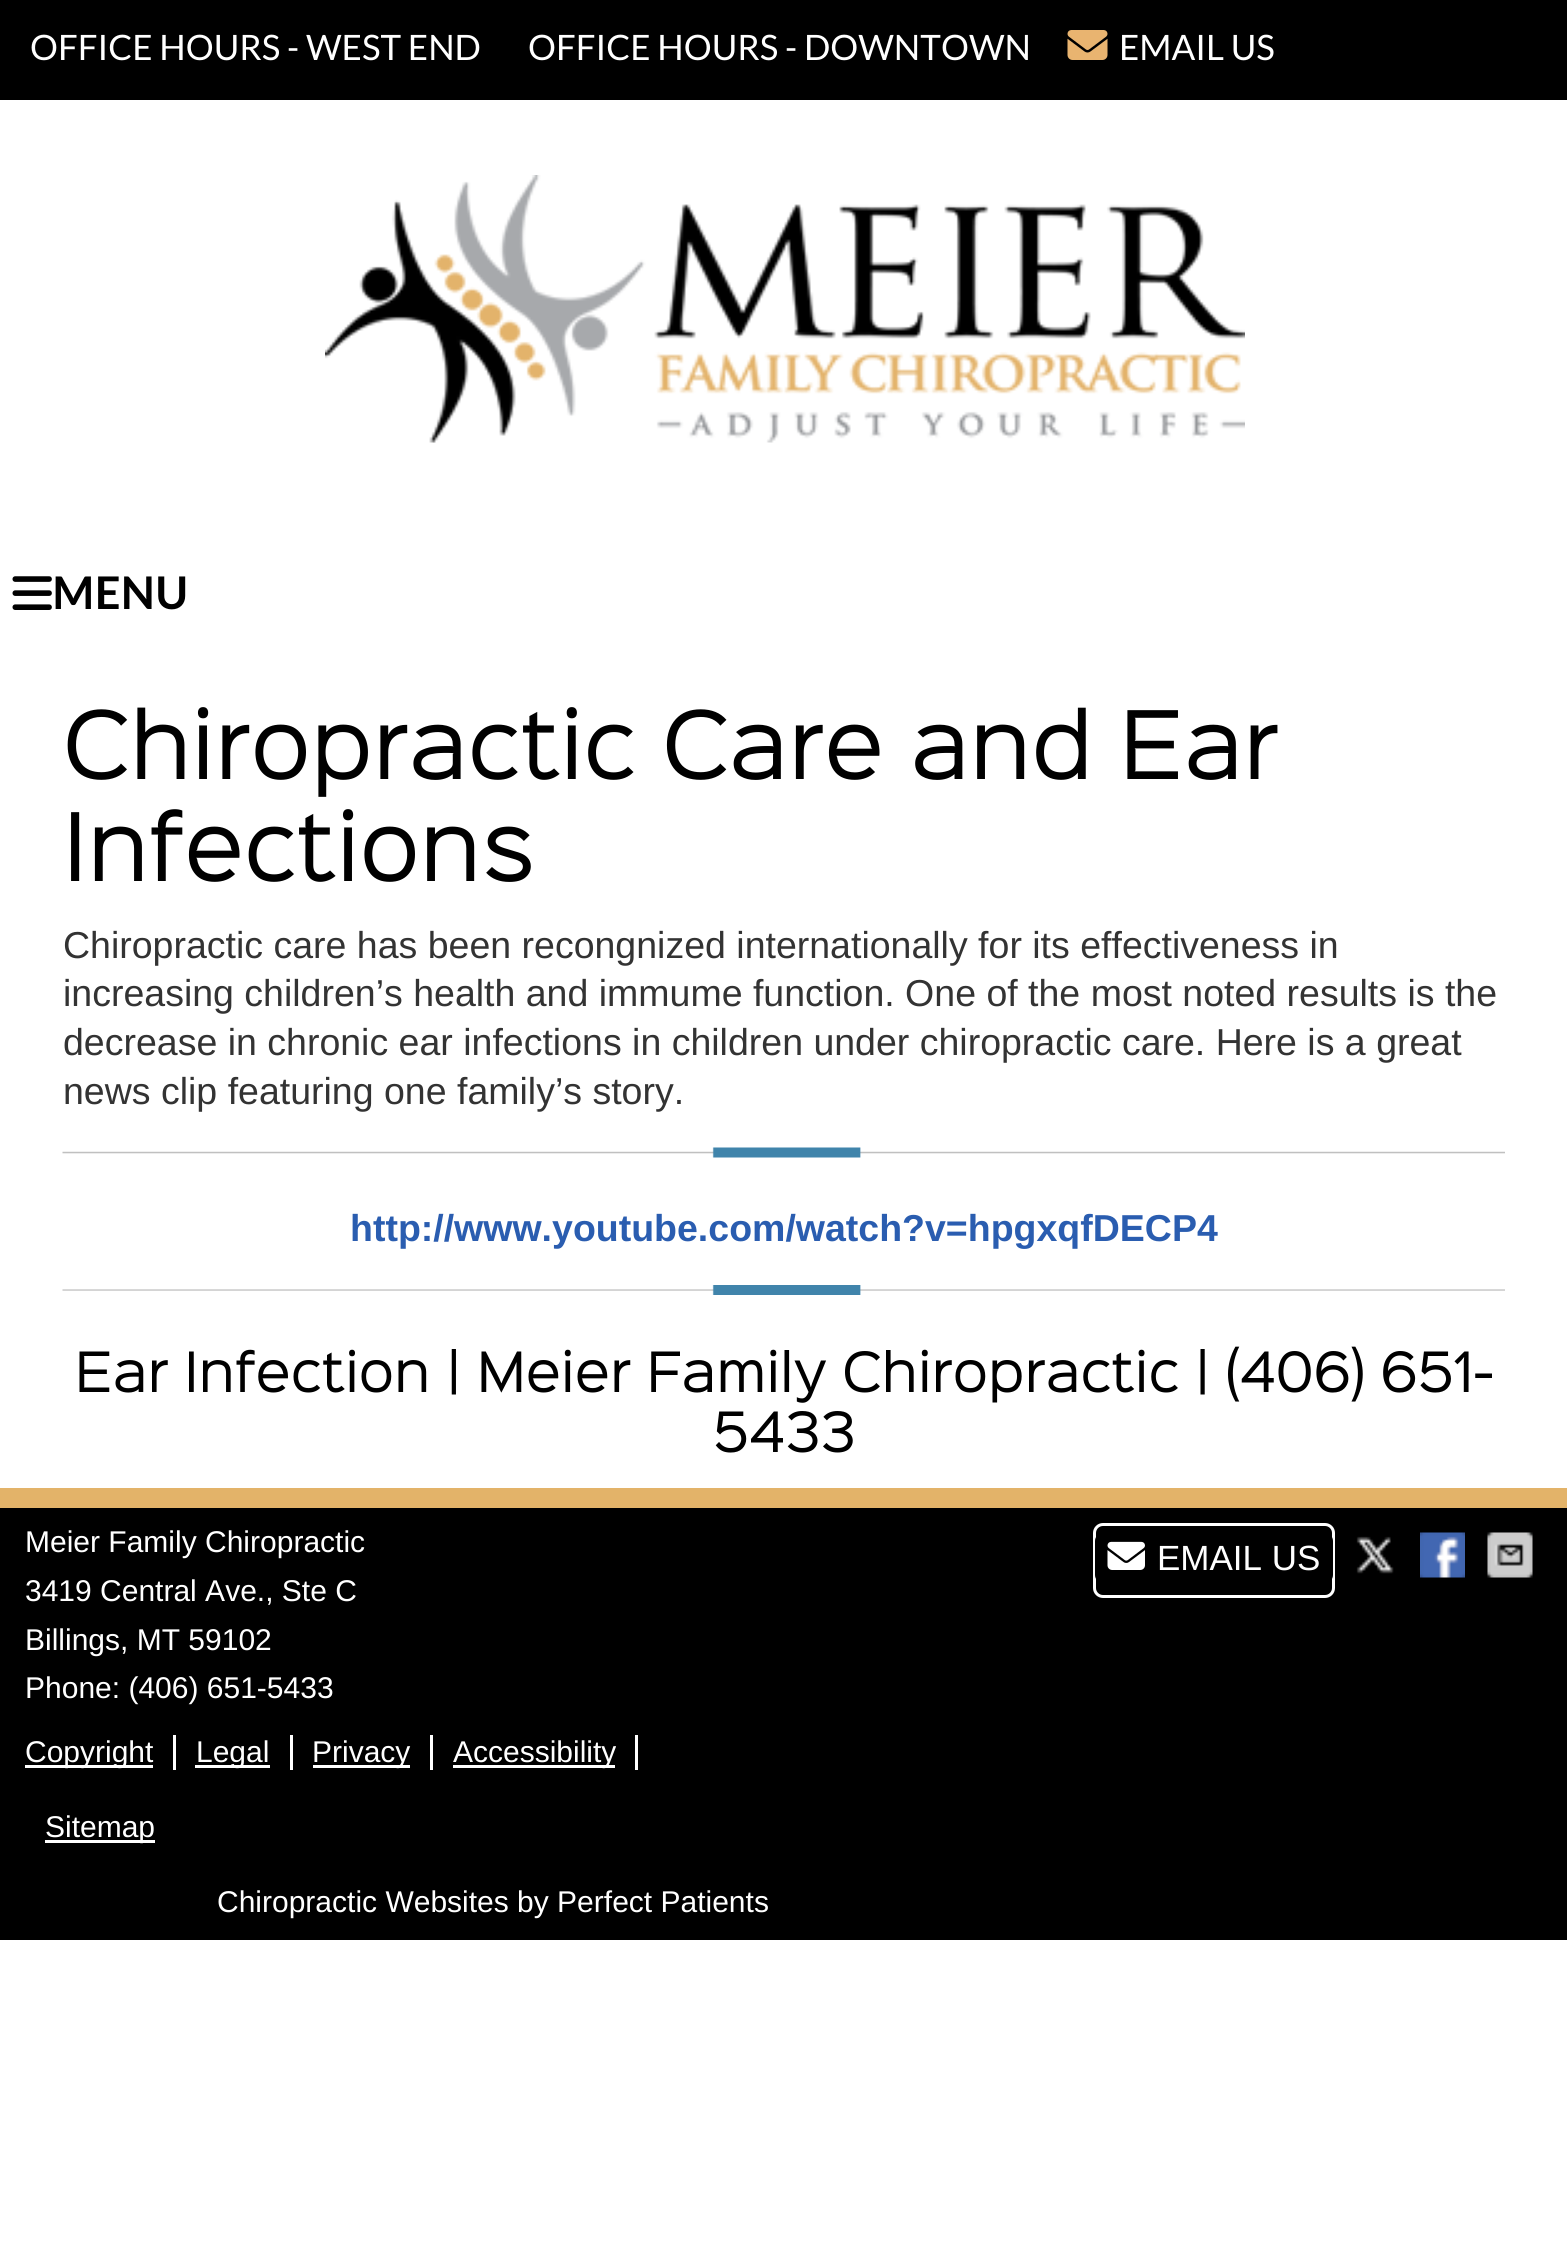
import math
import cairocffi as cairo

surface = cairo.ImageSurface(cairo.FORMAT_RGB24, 1567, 2243)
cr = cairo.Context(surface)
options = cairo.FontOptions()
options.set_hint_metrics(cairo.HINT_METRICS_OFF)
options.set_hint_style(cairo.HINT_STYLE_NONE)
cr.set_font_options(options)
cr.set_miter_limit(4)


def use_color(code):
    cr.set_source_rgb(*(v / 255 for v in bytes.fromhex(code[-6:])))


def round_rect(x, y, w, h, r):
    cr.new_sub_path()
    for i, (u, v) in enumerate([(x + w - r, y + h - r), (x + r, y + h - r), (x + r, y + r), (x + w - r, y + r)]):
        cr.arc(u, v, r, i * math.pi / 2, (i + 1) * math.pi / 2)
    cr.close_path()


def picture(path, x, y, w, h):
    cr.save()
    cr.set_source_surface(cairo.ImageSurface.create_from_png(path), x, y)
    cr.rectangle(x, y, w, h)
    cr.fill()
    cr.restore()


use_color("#ffffff")
cr.paint()
use_color("#000000")
cr.rectangle(0, 0, 1567, 100)
cr.fill()
cr.select_font_face("Lato")
cr.set_font_size(35)
use_color("#ffffff")
cr.move_to(30, 60)
cr.show_text("OFFICE HOURS - WEST END")
cr.move_to(528, 60)
cr.show_text("OFFICE HOURS - DOWNTOWN")
picture("img1.png", 1067, 30, 41, 30)
cr.move_to(1119, 60)
cr.show_text("EMAIL US")
picture("img2.png", 325, 175, 920, 268)
picture("img3.png", 12, 576, 40, 34)
cr.select_font_face("Lato", cairo.FONT_SLANT_NORMAL, cairo.FONT_WEIGHT_BOLD)
cr.set_font_size(45)
use_color("#000000")
cr.move_to(52, 609)
cr.show_text("MENU")
cr.select_font_face("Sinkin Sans")
cr.set_font_size(85)
cr.move_to(63, 779)
cr.show_text("Chiropractic Care and Ear")
cr.move_to(63, 881)
cr.show_text("Infections")
cr.select_font_face("Liberation Sans")
cr.set_font_size(37.5)
use_color("#333333")
cr.move_to(63, 958)
cr.show_text("Chiropractic care has been recongnized internationally for its effectiveness in")
cr.move_to(63, 1006)
cr.show_text("increasing children’s health and immume function. One of the most noted results is the")
cr.move_to(63, 1055)
cr.show_text("decrease in chronic ear infections in children under chiropractic care. Here is a great")
cr.move_to(63, 1104)
cr.show_text("news clip featuring one family’s story.")
picture("img4.png", 62, 1147, 1443, 11)
cr.select_font_face("Liberation Sans", cairo.FONT_SLANT_NORMAL, cairo.FONT_WEIGHT_BOLD)
use_color("#2a5db0")
cr.move_to(350, 1241)
cr.show_text("http://www.youtube.com/watch?v=hpgxqfDECP4")
picture("img5.png", 62, 1285, 1443, 10)
cr.select_font_face("Sinkin Sans")
cr.set_font_size(50)
use_color("#000000")
cr.move_to(75, 1392)
cr.show_text("Ear Infection | Meier Family Chiropractic | (406) 651-")
cr.move_to(713, 1452)
cr.show_text("5433")
cr.rectangle(0, 1508, 1567, 432)
cr.fill()
use_color("#e3b369")
cr.rectangle(0, 1488, 1567, 20)
cr.fill()
cr.select_font_face("Liberation Sans")
cr.set_font_size(30)
use_color("#ffffff")
cr.move_to(25, 1552)
cr.show_text("Meier Family Chiropractic")
cr.move_to(25, 1601)
cr.show_text("3419 Central Ave., Ste C")
cr.move_to(25, 1650)
cr.show_text("Billings, MT 59102")
cr.move_to(25, 1698)
cr.show_text("Phone: (406) 651-5433")
round_rect(1094.5, 1524.5, 239, 72, 8.5)
cr.set_line_width(3)
cr.stroke()
use_color("#000000")
round_rect(1095, 1533, 238, 50, 8)
cr.fill()
picture("img6.png", 1107, 1541, 38, 29)
cr.set_font_size(35)
use_color("#ffffff")
cr.move_to(1157, 1570)
cr.show_text("EMAIL US")
picture("img7.png", 1356, 1536, 38, 38)
picture("img8.png", 1420, 1532, 45, 46)
picture("img9.png", 1487, 1532, 46, 46)
cr.rectangle(25, 1765, 128, 3)
cr.fill()
cr.set_font_size(30)
cr.move_to(25, 1762)
cr.show_text("Copyright")
cr.rectangle(173, 1735, 3, 35)
cr.fill()
cr.rectangle(195, 1765, 75, 3)
cr.fill()
cr.move_to(196, 1762)
cr.show_text("Legal")
cr.rectangle(290, 1735, 3, 35)
cr.fill()
cr.rectangle(313, 1765, 97, 3)
cr.fill()
cr.move_to(312, 1762)
cr.show_text("Privacy")
cr.rectangle(430, 1735, 3, 35)
cr.fill()
cr.rectangle(453, 1765, 162, 3)
cr.fill()
cr.move_to(453, 1762)
cr.show_text("Accessibility")
cr.rectangle(635, 1735, 3, 35)
cr.fill()
cr.rectangle(45, 1840, 110, 3)
cr.fill()
cr.move_to(45, 1837)
cr.show_text("Sitemap")
cr.move_to(217, 1912)
cr.show_text("Chiropractic Websites by Perfect Patients")
surface.write_to_png("result.png")
